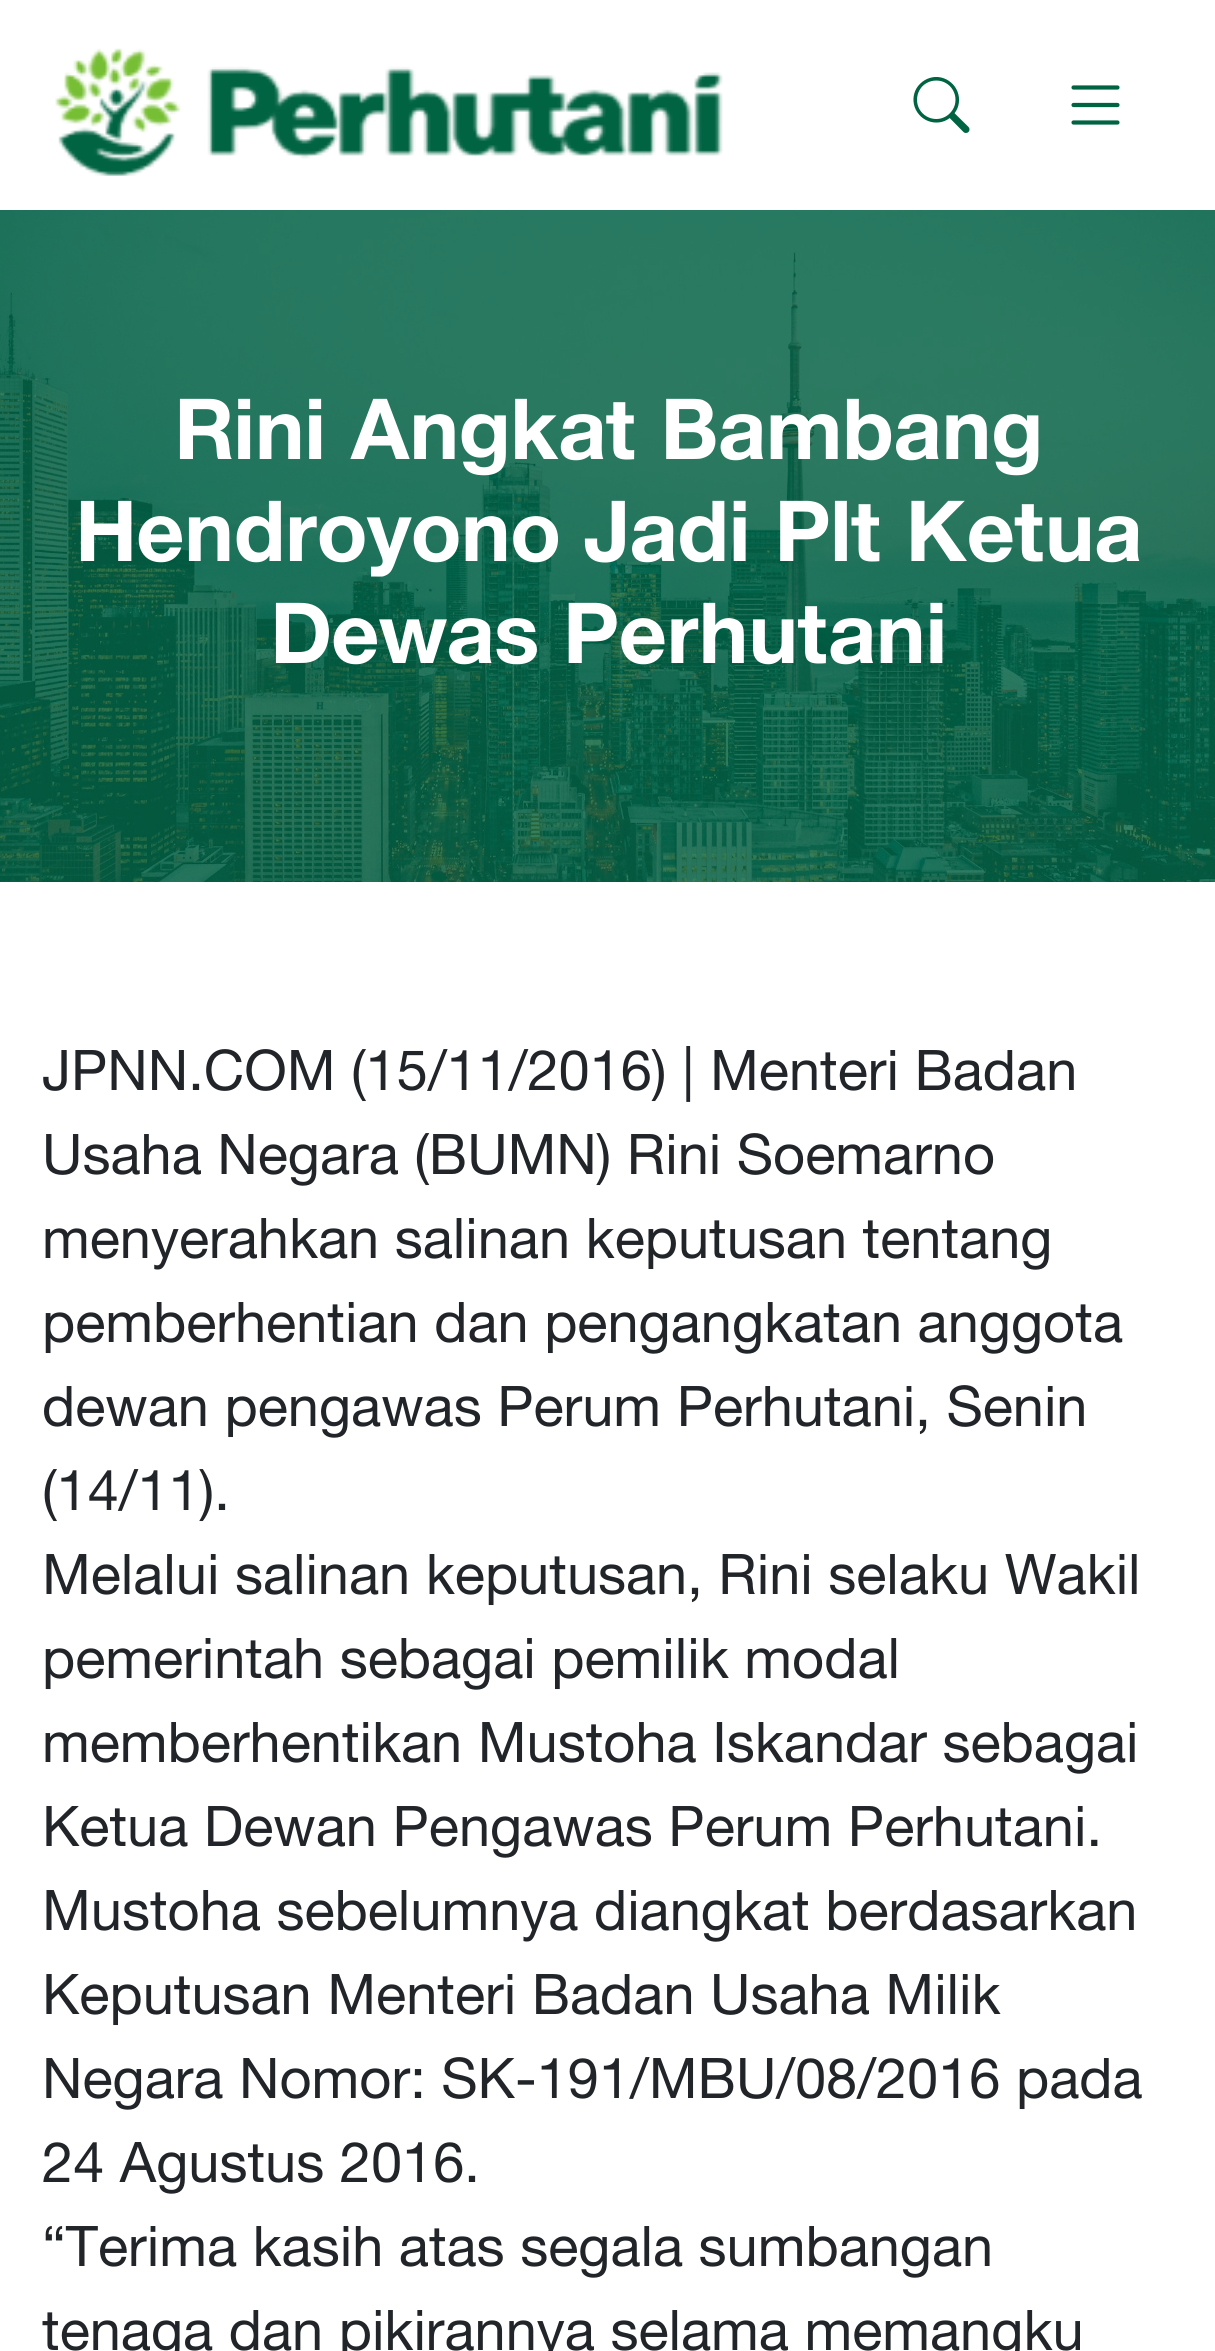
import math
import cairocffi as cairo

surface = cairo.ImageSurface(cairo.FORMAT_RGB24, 1215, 2351)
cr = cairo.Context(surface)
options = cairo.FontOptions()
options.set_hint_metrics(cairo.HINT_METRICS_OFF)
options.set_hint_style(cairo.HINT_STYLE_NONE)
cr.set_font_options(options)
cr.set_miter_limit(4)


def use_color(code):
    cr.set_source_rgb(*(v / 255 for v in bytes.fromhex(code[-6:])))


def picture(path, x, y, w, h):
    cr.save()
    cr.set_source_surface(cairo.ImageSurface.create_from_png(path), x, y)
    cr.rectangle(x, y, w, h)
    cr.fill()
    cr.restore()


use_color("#ffffff")
cr.paint()
picture("img1.png", 55, 48, 668, 128)
picture("img2.png", 913, 77, 57, 56)
picture("img3.png", 1071, 85, 49, 40)
use_color("#006342")
cr.rectangle(0, 210, 1215, 672)
cr.fill()
picture("img4.png", 0, 210, 1215, 672)
cr.select_font_face("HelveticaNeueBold", cairo.FONT_SLANT_NORMAL, cairo.FONT_WEIGHT_BOLD)
cr.set_font_size(85.2)
use_color("#ffffff")
cr.move_to(175, 459)
cr.show_text("Rini Angkat Bambang")
cr.move_to(76, 561)
cr.show_text("Hendroyono Jadi Plt Ketua")
cr.move_to(271, 663)
cr.show_text("Dewas Perhutani")
cr.select_font_face("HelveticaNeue")
cr.set_font_size(56)
use_color("#212529")
cr.move_to(42, 1090)
cr.show_text("JPNN.COM (15/11/2016) | Menteri Badan")
cr.move_to(42, 1174)
cr.show_text("Usaha Negara (BUMN) Rini Soemarno")
cr.move_to(42, 1258)
cr.show_text("menyerahkan salinan keputusan tentang")
cr.move_to(42, 1342)
cr.show_text("pemberhentian dan pengangkatan anggota")
cr.move_to(42, 1426)
cr.show_text("dewan pengawas Perum Perhutani, Senin")
cr.move_to(42, 1510)
cr.show_text("(14/11).")
cr.move_to(42, 1594)
cr.show_text("Melalui salinan keputusan, Rini selaku Wakil")
cr.move_to(42, 1678)
cr.show_text("pemerintah sebagai pemilik modal")
cr.move_to(42, 1762)
cr.show_text("memberhentikan Mustoha Iskandar sebagai")
cr.move_to(42, 1846)
cr.show_text("Ketua Dewan Pengawas Perum Perhutani.")
cr.move_to(42, 1930)
cr.show_text("Mustoha sebelumnya diangkat berdasarkan")
cr.move_to(42, 2014)
cr.show_text("Keputusan Menteri Badan Usaha Milik")
cr.move_to(42, 2098)
cr.show_text("Negara Nomor: SK-191/MBU/08/2016 pada")
cr.move_to(42, 2182)
cr.show_text("24 Agustus 2016.")
cr.move_to(42, 2266)
cr.show_text("“Terima kasih atas segala sumbangan")
cr.move_to(42, 2350)
cr.show_text("tenaga dan pikirannya selama memangku")
surface.write_to_png("result.png")
